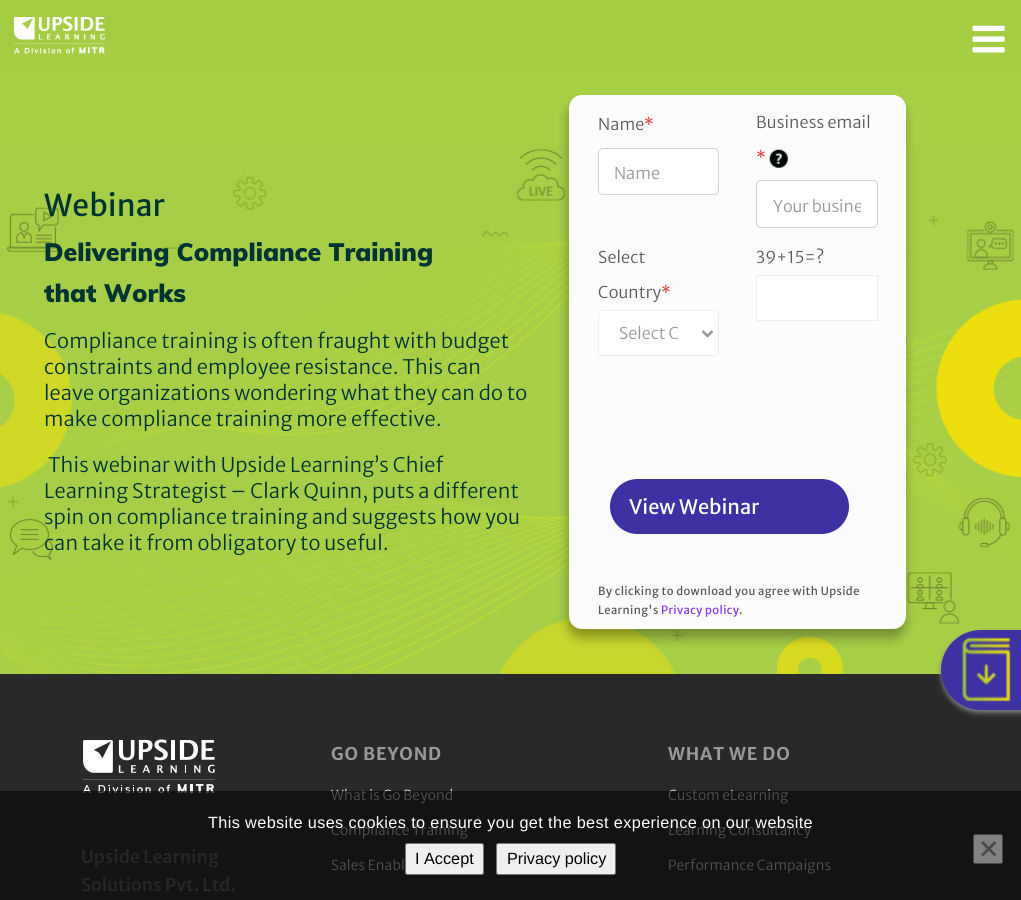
import math
import cairocffi as cairo

surface = cairo.ImageSurface(cairo.FORMAT_RGB24, 1021, 900)
cr = cairo.Context(surface)
options = cairo.FontOptions()
options.set_hint_metrics(cairo.HINT_METRICS_OFF)
options.set_hint_style(cairo.HINT_STYLE_NONE)
cr.set_font_options(options)
cr.set_miter_limit(4)


def use_color(code):
    cr.set_source_rgb(*(v / 255 for v in bytes.fromhex(code[-6:])))


def spaced_text(x, y, s, letter, word):
    cr.move_to(x, y)
    for ch in s:
        cr.show_text(ch)
        cr.rel_move_to(letter + word * (ch == ' '), 0)


def round_rect(x, y, w, h, r):
    cr.new_sub_path()
    for i, (u, v) in enumerate([(x + w - r, y + h - r), (x + r, y + h - r), (x + r, y + r), (x + w - r, y + r)]):
        cr.arc(u, v, r, i * math.pi / 2, (i + 1) * math.pi / 2)
    cr.close_path()


def shadow(x, y, w, h, r, blur, alpha):
    cr.push_group_with_content(cairo.CONTENT_ALPHA)
    cr.set_operator(cairo.OPERATOR_SOURCE)
    for i in range(15, -16, -2):
        e = blur * i / 6
        if min(w, h) + 2 * e > 0:
            cr.set_source_rgba(0, 0, 0, alpha * math.erfc((i - 1) / 8.5) / 2)
            round_rect(x - e, y - e, w + 2 * e, h + 2 * e, max(0, min(r + e + blur * .6, min(w, h) / 2 + e)))
            cr.fill()
    cr.mask(cr.pop_group())


def picture(path, x, y, w, h):
    cr.save()
    cr.set_source_surface(cairo.ImageSurface.create_from_png(path), x, y)
    cr.rectangle(x, y, w, h)
    cr.fill()
    cr.restore()


use_color("#a7cf46")
cr.paint()
use_color("#a4cd44")
cr.rectangle(0, 0, 1021, 75)
cr.fill()
picture("img1.png", 13, 16, 92, 38)
picture("img2.png", 972, 25, 33, 28)
picture("img4.png", 0, 147, 1021, 527)
cr.select_font_face("Merriweather Sans")
cr.set_font_size(30)
use_color("#003333")
spaced_text(44, 216, "Webinar", 0.12, 0)
cr.select_font_face("Muli Black")
cr.set_font_size(25)
cr.move_to(44, 261)
cr.show_text("Delivering Compliance Training")
cr.move_to(44, 302)
cr.show_text("that Works")
cr.select_font_face("Merriweather Sans Light")
cr.set_font_size(20)
spaced_text(44, 348, "Compliance training is often fraught with budget", 0.12, 0)
spaced_text(44, 374, "constraints and employee resistance. This can", 0.12, 0)
spaced_text(44, 400, "leave organizations wondering what they can do to", 0.12, 0)
spaced_text(44, 426, "make compliance training more effective.", 0.12, 0)
spaced_text(48, 472, "This webinar with Upside Learning’s Chief", 0.12, 0)
spaced_text(44, 498, "Learning Strategist – Clark Quinn, puts a different", 0.12, 0)
spaced_text(44, 524, "spin on compliance training and suggests how you", 0.12, 0)
spaced_text(44, 550, "can take it from obligatory to useful.", 0.12, 0)
use_color("#000000")
shadow(568, 104, 337, 534, 13, 5.5, 0.31)
use_color("#fcfcfc")
round_rect(569, 95, 337, 534, 13)
cr.fill()
cr.set_font_size(16.25)
use_color("#585858")
spaced_text(598, 130, "Name", 0.12, 0)
use_color("#db2723")
spaced_text(644, 130, "*", 0.12, 0)
use_color("#ffffff")
round_rect(598.5, 148.5, 120, 46, 4.5)
cr.fill_preserve()
use_color("#ced4da")
cr.set_line_width(1)
cr.stroke()
use_color("#999999")
cr.move_to(614, 179)
cr.show_text("Name")
use_color("#585858")
spaced_text(756, 128, "Business email", 0.12, 0)
use_color("#db2723")
spaced_text(756, 163, "*", 0.12, 0)
picture("img3.png", 769, 149, 19, 19)
use_color("#ffffff")
round_rect(758, 181, 118, 45, 4)
cr.fill()
round_rect(756.5, 180.5, 121, 47, 4.5)
use_color("#ced4da")
cr.stroke()
cr.save()
cr.rectangle(773, 195, 88, 21)
cr.clip()
use_color("#999999")
cr.move_to(773, 212)
cr.show_text("Your busine")
cr.restore()
use_color("#585858")
spaced_text(598, 263, "Select", 0.12, 0)
spaced_text(598, 298, "Country", 0.12, 0)
use_color("#db2723")
spaced_text(661, 298, "*", 0.12, 0)
use_color("#ffffff")
round_rect(598.5, 310.5, 120, 45, 4.5)
cr.fill_preserve()
use_color("#ededed")
cr.stroke()
cr.new_path()
cr.move_to(702.5, 331)
cr.line_to(707.5, 336)
cr.line_to(712.5, 331)
use_color("#959595")
cr.set_line_width(2.5)
cr.stroke()
use_color("#999999")
cr.move_to(619, 339)
cr.show_text("Select C")
use_color("#585858")
spaced_text(756, 263, "39+15=?", 0.12, 0)
use_color("#ffffff")
cr.rectangle(756.5, 275.5, 121, 45)
cr.fill_preserve()
use_color("#ededed")
cr.set_line_width(1)
cr.stroke()
use_color("#3e31a3")
round_rect(610, 479, 239, 55, 27.5)
cr.fill()
cr.select_font_face("Merriweather Sans")
cr.set_font_size(20)
use_color("#ffffff")
cr.move_to(629, 514)
cr.show_text("View Webinar")
cr.set_font_size(11.25)
use_color("#585858")
spaced_text(598, 595, "By clicking to download you agree with Upside", 0.38, 0)
spaced_text(598, 614, "Learning's", 0.38, 0)
use_color("#8834fd")
spaced_text(661, 614, "Privacy policy", 0.38, 0)
use_color("#585858")
spaced_text(739, 614, ".", 0.38, 0)
use_color("#292929")
cr.rectangle(0, 674, 1021, 226)
cr.fill()
picture("img5.png", 83, 739, 132, 55)
cr.select_font_face("Merriweather Sans Medium")
cr.set_font_size(17.5)
use_color("#686868")
spaced_text(81, 863, "Upside Learning", 0.12, 0)
spaced_text(81, 891, "Solutions Pvt. Ltd.", 0.12, 0)
cr.select_font_face("Merriweather Sans", cairo.FONT_SLANT_NORMAL, cairo.FONT_WEIGHT_BOLD)
use_color("#999999")
spaced_text(331, 760, "GO BEYOND", 0.9, 0)
cr.select_font_face("Merriweather Sans Light")
cr.set_font_size(13.75)
use_color("#efefef")
spaced_text(331, 800, "What is Go Beyond", 0.12, 0)
spaced_text(331, 835, "Compliance Training", 0.12, 0)
spaced_text(331, 870, "Sales Enabl", 0.12, 0)
cr.select_font_face("Merriweather Sans", cairo.FONT_SLANT_NORMAL, cairo.FONT_WEIGHT_BOLD)
cr.set_font_size(17.5)
use_color("#999999")
spaced_text(668, 760, "WHAT WE DO", 0.9, 0)
cr.select_font_face("Merriweather Sans Light")
cr.set_font_size(13.75)
use_color("#efefef")
spaced_text(668, 800, "Custom eLearning", 0.12, 0)
spaced_text(668, 835, "Learning Consultancy", 0.12, 0)
spaced_text(668, 870, "Performance Campaigns", 0.12, 0)
use_color("#7d7d7d")
shadow(941, 633, 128, 80, 40, 2.5, 1)
use_color("#3e31a3")
cr.new_path()
cr.move_to(981, 630)
cr.line_to(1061, 630)
cr.line_to(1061, 710)
cr.line_to(981, 710)
cr.curve_to(959, 710, 941, 692, 941, 670)
cr.curve_to(941, 648, 959, 630, 981, 630)
cr.close_path()
cr.fill()
picture("img6.png", 962, 637, 49, 65)
cr.set_source_rgba(0.039, 0.039, 0.039, 0.68)
cr.rectangle(0, 791, 1021, 109)
cr.fill()
cr.select_font_face("Liberation Sans")
cr.set_font_size(16.25)
use_color("#ffffff")
spaced_text(208, 828, "This website uses cookies to ensure you get the best experience on our website", 0.38, 0)
use_color("#efefef")
round_rect(405.5, 843.5, 78, 31, 2)
cr.fill_preserve()
use_color("#767676")
cr.stroke()
use_color("#000000")
cr.move_to(415, 864)
cr.show_text("I Accept")
use_color("#efefef")
round_rect(496.5, 843.5, 119, 31, 2)
cr.fill_preserve()
use_color("#767676")
cr.stroke()
use_color("#000000")
cr.move_to(507, 864)
cr.show_text("Privacy policy")
use_color("#818181")
round_rect(973.5, 834.5, 29, 29, 2)
cr.fill_preserve()
use_color("#454545")
cr.stroke()
use_color("#4a4a4a")
cr.new_path()
cr.move_to(994.5, 841)
cr.line_to(996.5, 843)
cr.line_to(983, 856.5)
cr.line_to(981, 854.5)
cr.close_path()
cr.fill()
cr.new_path()
cr.move_to(981, 843)
cr.line_to(983, 841)
cr.line_to(996.5, 854.5)
cr.line_to(994.5, 856.5)
cr.close_path()
cr.fill()
surface.write_to_png("result.png")
